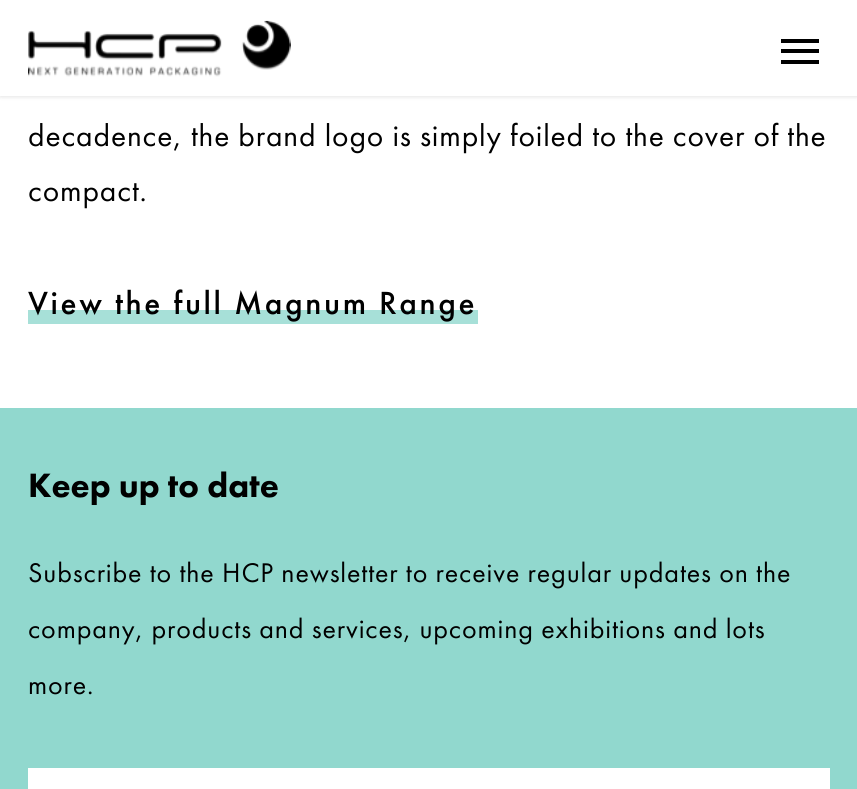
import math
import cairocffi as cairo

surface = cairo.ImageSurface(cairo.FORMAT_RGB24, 857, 789)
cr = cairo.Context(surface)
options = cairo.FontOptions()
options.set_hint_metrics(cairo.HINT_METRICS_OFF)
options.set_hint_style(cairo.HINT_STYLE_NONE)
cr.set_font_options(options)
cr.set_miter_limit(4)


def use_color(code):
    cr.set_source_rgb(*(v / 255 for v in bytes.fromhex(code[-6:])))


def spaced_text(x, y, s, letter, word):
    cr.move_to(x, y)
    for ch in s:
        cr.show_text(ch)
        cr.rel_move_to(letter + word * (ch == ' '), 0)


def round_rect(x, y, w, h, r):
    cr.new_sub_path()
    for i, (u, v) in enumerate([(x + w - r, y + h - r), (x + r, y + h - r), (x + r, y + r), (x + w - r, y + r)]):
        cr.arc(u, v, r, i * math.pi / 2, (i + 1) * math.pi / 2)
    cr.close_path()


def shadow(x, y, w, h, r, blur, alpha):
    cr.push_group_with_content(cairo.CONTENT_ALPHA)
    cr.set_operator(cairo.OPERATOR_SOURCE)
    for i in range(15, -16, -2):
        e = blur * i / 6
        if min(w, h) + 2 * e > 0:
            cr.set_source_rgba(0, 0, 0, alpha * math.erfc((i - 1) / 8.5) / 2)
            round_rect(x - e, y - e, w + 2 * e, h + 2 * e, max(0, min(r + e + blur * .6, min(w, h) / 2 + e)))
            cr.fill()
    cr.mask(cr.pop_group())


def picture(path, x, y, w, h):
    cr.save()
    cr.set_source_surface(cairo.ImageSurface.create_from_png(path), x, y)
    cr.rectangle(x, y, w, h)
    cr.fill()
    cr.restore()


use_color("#ffffff")
cr.paint()
use_color("#000000")
shadow(0, 0, 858, 96, 0, 2.5, 0.15)
use_color("#ffffff")
cr.rectangle(0, 0, 857, 96)
cr.fill()
picture("img1.png", 28, 20, 263, 57)
use_color("#000000")
cr.rectangle(781, 39, 38, 4)
cr.fill()
cr.rectangle(781, 49, 38, 4)
cr.fill()
cr.rectangle(781, 60, 38, 4)
cr.fill()
cr.select_font_face("Futura PT")
cr.set_font_size(31.5)
spaced_text(28, 146, "decadence, the brand logo is simply foiled to the cover of the", 0.85, 0)
spaced_text(28, 201, "compact.", 0.85, 0)
use_color("#a7e0d8")
cr.rectangle(28, 310, 450, 14)
cr.fill()
cr.select_font_face("Futura PT Medium")
cr.set_font_size(33.25)
use_color("#000000")
spaced_text(28, 314, "View the full Magnum Range", 2.6, 0)
use_color("#91d8ce")
cr.rectangle(0, 408, 857, 381)
cr.fill()
cr.select_font_face("Futura PT Black")
cr.set_font_size(35)
use_color("#000000")
cr.move_to(28, 497)
cr.show_text("Keep up to date")
cr.select_font_face("Futura PT")
cr.set_font_size(28)
spaced_text(28, 582, "Subscribe to the HCP newsletter to receive regular updates on the", 0.85, 0)
spaced_text(28, 638, "company, products and services, upcoming exhibitions and lots", 0.85, 0)
spaced_text(28, 694, "more.", 0.85, 0)
use_color("#ffffff")
cr.rectangle(28, 768, 802, 21)
cr.fill()
surface.write_to_png("result.png")
